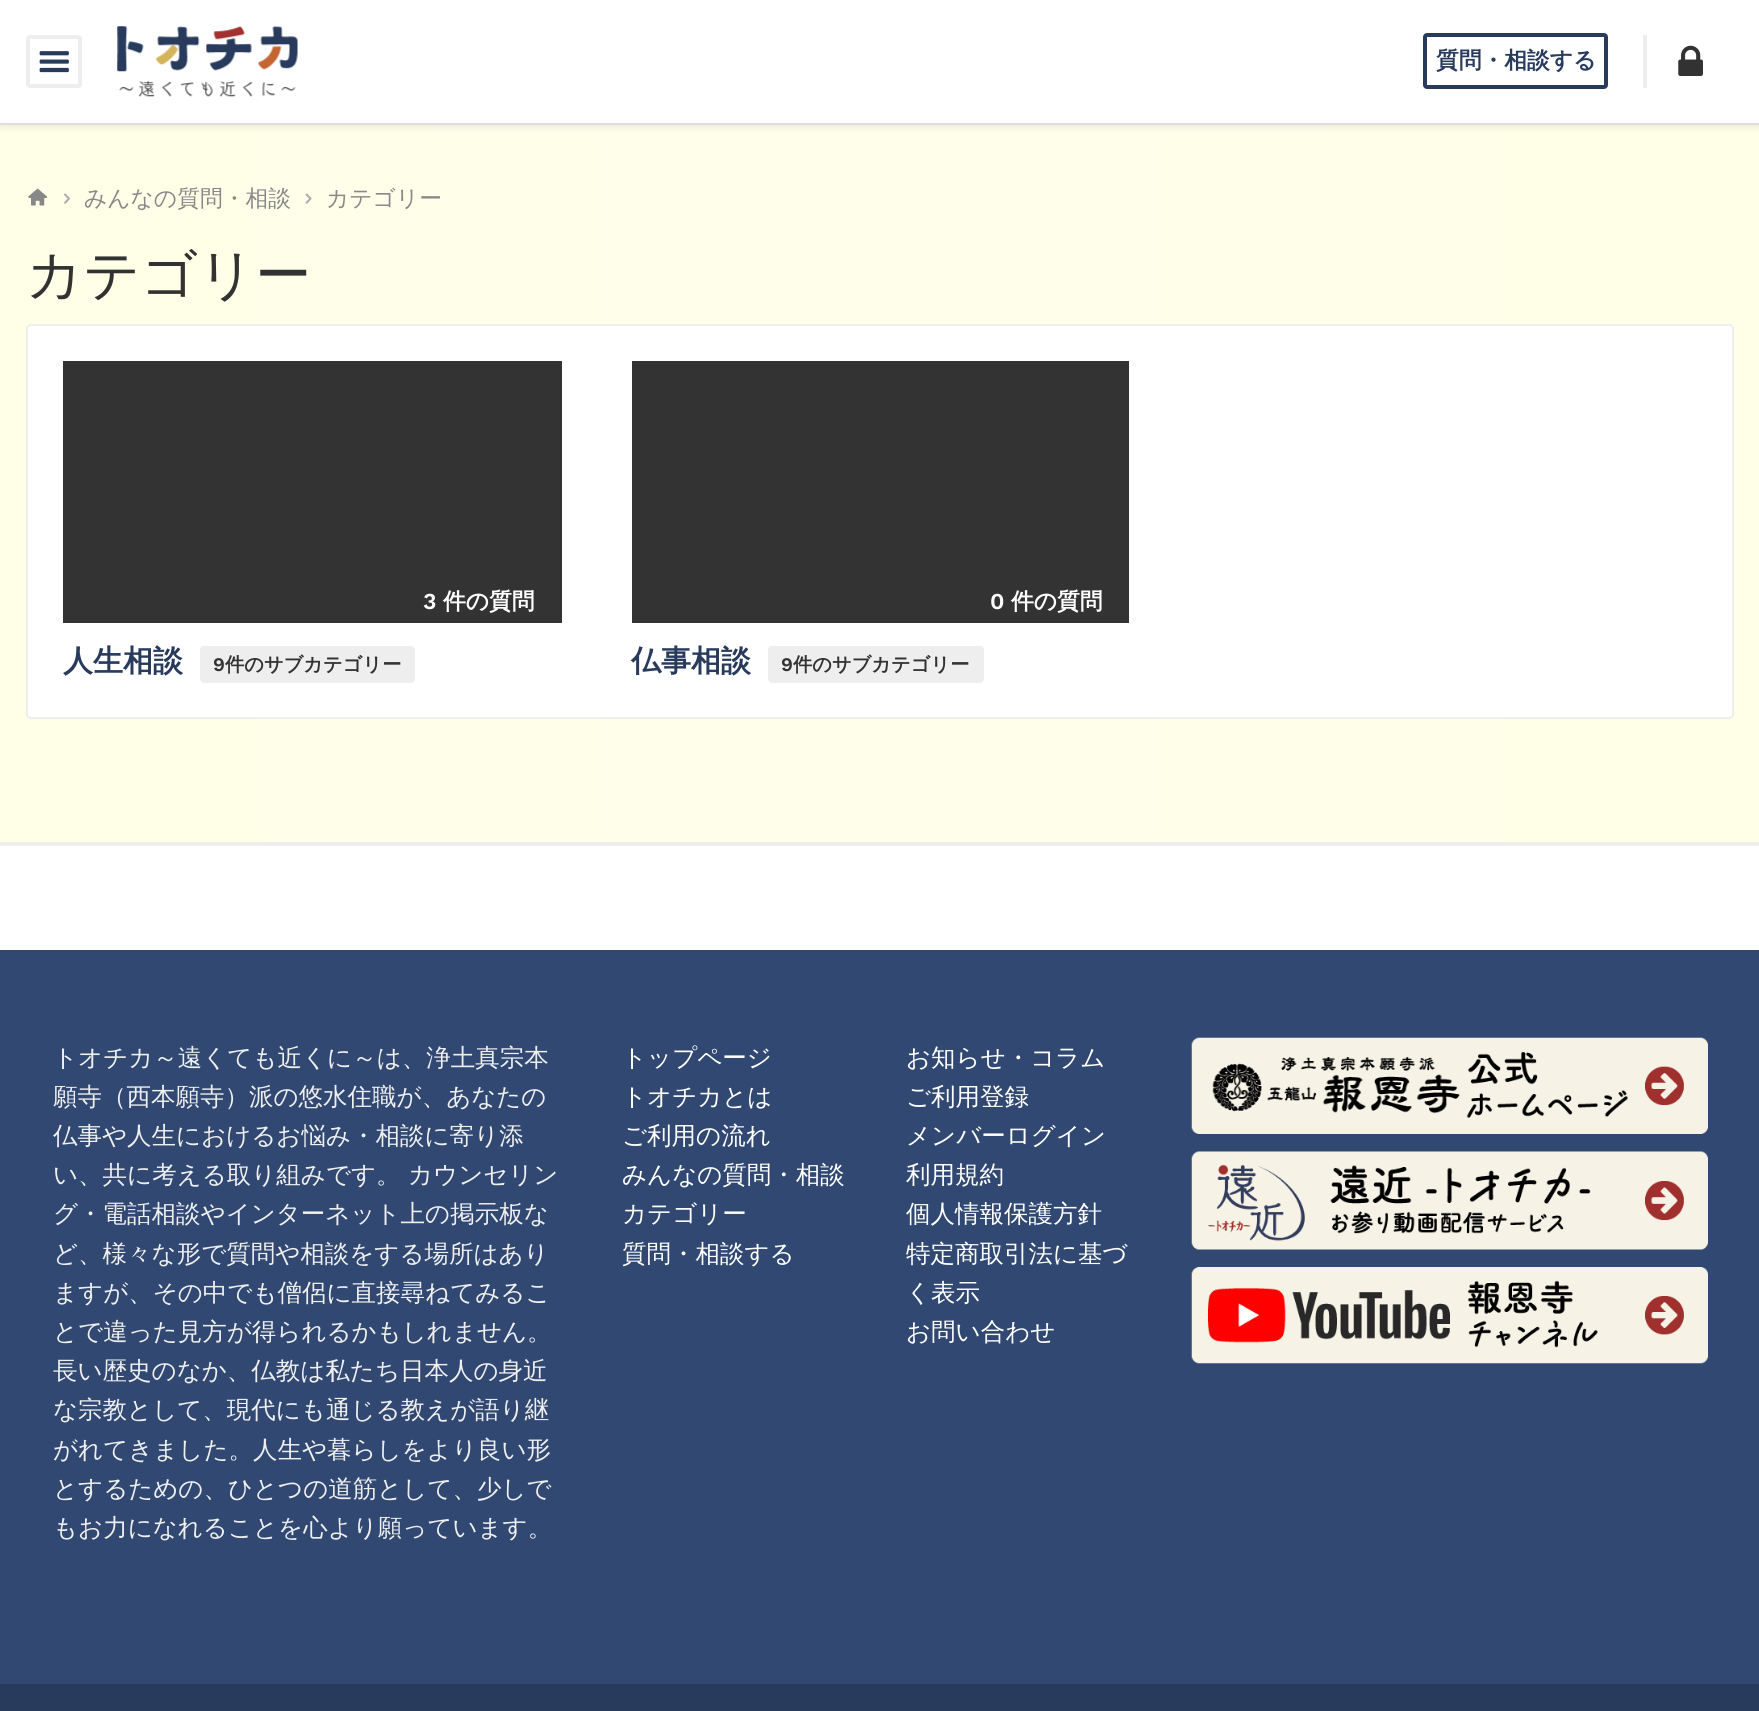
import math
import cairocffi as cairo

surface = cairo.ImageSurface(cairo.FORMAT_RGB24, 1759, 1711)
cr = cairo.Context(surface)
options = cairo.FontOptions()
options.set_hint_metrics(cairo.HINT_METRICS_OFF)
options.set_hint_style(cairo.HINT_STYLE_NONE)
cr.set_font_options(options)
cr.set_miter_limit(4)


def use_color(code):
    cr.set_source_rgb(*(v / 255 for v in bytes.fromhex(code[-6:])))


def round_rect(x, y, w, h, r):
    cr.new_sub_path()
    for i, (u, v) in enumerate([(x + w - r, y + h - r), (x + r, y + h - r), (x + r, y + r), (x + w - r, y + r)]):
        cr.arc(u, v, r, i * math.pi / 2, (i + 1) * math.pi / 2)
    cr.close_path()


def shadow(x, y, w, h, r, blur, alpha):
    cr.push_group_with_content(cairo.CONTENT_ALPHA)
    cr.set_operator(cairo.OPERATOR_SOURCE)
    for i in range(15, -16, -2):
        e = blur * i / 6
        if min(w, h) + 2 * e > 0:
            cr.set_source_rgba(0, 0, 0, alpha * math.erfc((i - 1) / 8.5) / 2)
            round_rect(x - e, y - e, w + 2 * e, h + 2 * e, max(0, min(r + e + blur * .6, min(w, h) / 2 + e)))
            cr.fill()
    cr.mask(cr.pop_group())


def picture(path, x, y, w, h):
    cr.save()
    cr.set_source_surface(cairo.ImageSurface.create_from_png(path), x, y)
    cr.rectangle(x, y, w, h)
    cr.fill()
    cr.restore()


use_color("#ffffff")
cr.paint()
gradient = cairo.LinearGradient(0, 949, 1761, 949)
gradient.add_color_stop_rgba(0, 1, 0.996, 0.902, 1)
gradient.add_color_stop_rgba(0.5, 1, 0.996, 0.922, 1)
gradient.add_color_stop_rgba(1, 1, 0.996, 0.902, 1)
cr.set_source(gradient)
cr.rectangle(0, 125, 1759, 717)
cr.fill()
use_color("#000000")
shadow(0, 4, 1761, 124, 0, 3.5, 0.07)
use_color("#ffffff")
cr.rectangle(0, 0, 1759, 123)
cr.fill()
use_color("#dddddd")
cr.rectangle(0, 123, 1759, 2)
cr.fill()
round_rect(28, 37, 52, 49, 2)
use_color("#eeeeee")
cr.set_line_width(4)
cr.stroke()
picture("img1.png", 39, 51, 30, 22)
picture("img2.png", 117, 26, 181, 71)
round_rect(1425, 35, 181, 52, 2)
use_color("#283b5d")
cr.stroke()
cr.select_font_face("WenQuanYi Zen Hei", cairo.FONT_SLANT_NORMAL, cairo.FONT_WEIGHT_BOLD)
cr.set_font_size(22.75)
cr.move_to(1436, 68)
cr.show_text("質問・相談する")
use_color("#eeeeee")
cr.rectangle(1643, 35, 4, 53)
cr.fill()
picture("img3.png", 1678, 45, 25, 31)
picture("img4.png", 28, 188, 19, 18)
picture("img5.png", 64, 193, 6, 11)
cr.select_font_face("WenQuanYi Zen Hei Medium")
use_color("#888888")
cr.move_to(84, 206)
cr.show_text("みんなの質問・相談")
picture("img6.png", 305, 193, 7, 11)
cr.move_to(326, 206)
cr.show_text("カテゴリー")
cr.set_font_size(56)
use_color("#323232")
cr.move_to(26, 294)
cr.show_text("カテゴリー")
use_color("#ffffff")
round_rect(27, 325, 1706, 393, 4)
cr.fill_preserve()
use_color("#eeeeee")
cr.set_line_width(2)
cr.stroke()
use_color("#333333")
cr.rectangle(63, 361, 499, 262)
cr.fill()
cr.select_font_face("Work Sans SemiBold")
cr.set_font_size(22.75)
use_color("#ffffff")
cr.move_to(423, 609)
cr.show_text("3")
cr.select_font_face("WenQuanYi Zen Hei", cairo.FONT_SLANT_NORMAL, cairo.FONT_WEIGHT_BOLD)
cr.move_to(443, 609)
cr.show_text("件の質問")
cr.set_font_size(30)
use_color("#283b5d")
cr.move_to(63, 671)
cr.show_text("人生相談")
use_color("#eeeeee")
round_rect(200, 646, 215, 37, 4)
cr.fill()
cr.select_font_face("Work Sans SemiBold")
cr.set_font_size(19.25)
use_color("#323232")
cr.move_to(213, 671)
cr.show_text("9")
cr.select_font_face("WenQuanYi Zen Hei", cairo.FONT_SLANT_NORMAL, cairo.FONT_WEIGHT_BOLD)
cr.move_to(225, 671)
cr.show_text("件のサブカテゴリー")
use_color("#333333")
cr.rectangle(632, 361, 497, 262)
cr.fill()
cr.select_font_face("Work Sans SemiBold")
cr.set_font_size(22.75)
use_color("#ffffff")
cr.move_to(990, 609)
cr.show_text("0")
cr.select_font_face("WenQuanYi Zen Hei", cairo.FONT_SLANT_NORMAL, cairo.FONT_WEIGHT_BOLD)
cr.move_to(1011, 609)
cr.show_text("件の質問")
cr.set_font_size(30)
use_color("#283b5d")
cr.move_to(631, 671)
cr.show_text("仏事相談")
use_color("#eeeeee")
round_rect(768, 646, 216, 37, 4)
cr.fill()
cr.select_font_face("Work Sans SemiBold")
cr.set_font_size(19.25)
use_color("#323232")
cr.move_to(781, 671)
cr.show_text("9")
cr.select_font_face("WenQuanYi Zen Hei", cairo.FONT_SLANT_NORMAL, cairo.FONT_WEIGHT_BOLD)
cr.move_to(793, 671)
cr.show_text("件のサブカテゴリー")
use_color("#eeeeee")
cr.rectangle(0, 842, 1759, 4)
cr.fill()
use_color("#283b5d")
cr.rectangle(0, 1684, 1759, 27)
cr.fill()
use_color("#314972")
cr.rectangle(0, 950, 1759, 734)
cr.fill()
cr.select_font_face("WenQuanYi Zen Hei Medium")
cr.set_font_size(24.5)
use_color("#efefef")
cr.move_to(53, 1066)
cr.show_text("トオチカ～遠くても近くに～は、浄土真宗本")
cr.move_to(53, 1105)
cr.show_text("願寺（西本願寺）派の悠水住職が、あなたの")
cr.move_to(53, 1144)
cr.show_text("仏事や人生におけるお悩み・相談に寄り添")
cr.move_to(53, 1183)
cr.show_text("い、共に考える取り組みです。")
cr.move_to(408, 1183)
cr.show_text("カウンセリン")
cr.move_to(53, 1222)
cr.show_text("グ・電話相談やインターネット上の掲示板な")
cr.move_to(53, 1262)
cr.show_text("ど、様々な形で質問や相談をする場所はあり")
cr.move_to(53, 1301)
cr.show_text("ますが、その中でも僧侶に直接尋ねてみるこ")
cr.move_to(53, 1340)
cr.show_text("とで違った見方が得られるかもしれません。")
cr.move_to(53, 1379)
cr.show_text("長い歴史のなか、仏教は私たち日本人の身近")
cr.move_to(53, 1418)
cr.show_text("な宗教として、現代にも通じる教えが語り継")
cr.move_to(53, 1458)
cr.show_text("がれてきました。人生や暮らしをより良い形")
cr.move_to(53, 1497)
cr.show_text("とするための、ひとつの道筋として、少しで")
cr.move_to(53, 1536)
cr.show_text("もお力になれることを心より願っています。")
use_color("#ffffff")
cr.move_to(622, 1066)
cr.show_text("トップページ")
cr.move_to(622, 1105)
cr.show_text("トオチカとは")
cr.move_to(622, 1144)
cr.show_text("ご利用の流れ")
cr.move_to(622, 1183)
cr.show_text("みんなの質問・相談")
cr.move_to(622, 1222)
cr.show_text("カテゴリー")
cr.move_to(622, 1262)
cr.show_text("質問・相談する")
cr.move_to(906, 1066)
cr.show_text("お知らせ・コラム")
cr.move_to(906, 1105)
cr.show_text("ご利用登録")
cr.move_to(906, 1144)
cr.show_text("メンバーログイン")
cr.move_to(906, 1183)
cr.show_text("利用規約")
cr.move_to(906, 1222)
cr.show_text("個人情報保護方針")
cr.move_to(906, 1262)
cr.show_text("特定商取引法に基づ")
cr.move_to(906, 1301)
cr.show_text("く表示")
cr.move_to(906, 1340)
cr.show_text("お問い合わせ")
picture("img7.png", 1191, 1037, 517, 97)
picture("img8.png", 1191, 1151, 517, 99)
picture("img9.png", 1191, 1267, 517, 97)
surface.write_to_png("result.png")
